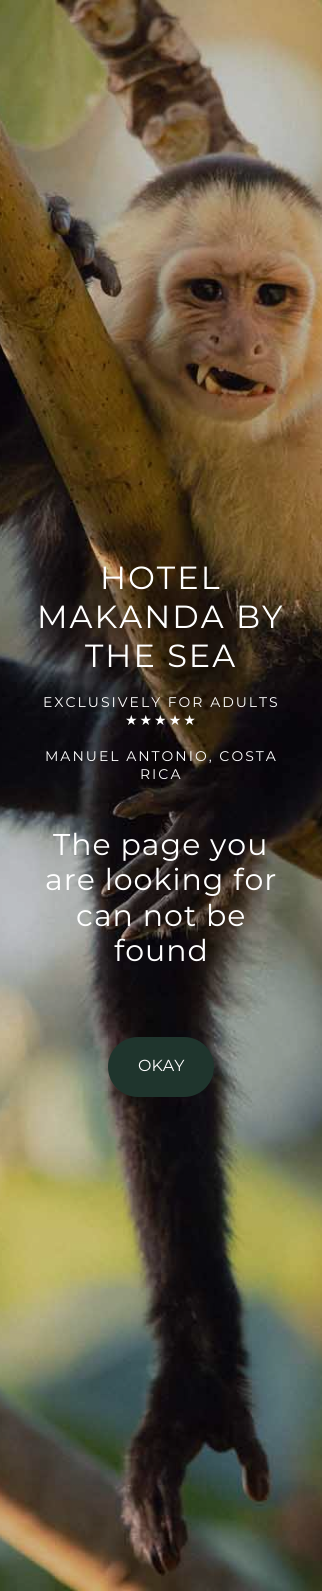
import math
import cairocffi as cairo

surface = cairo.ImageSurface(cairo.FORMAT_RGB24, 322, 1591)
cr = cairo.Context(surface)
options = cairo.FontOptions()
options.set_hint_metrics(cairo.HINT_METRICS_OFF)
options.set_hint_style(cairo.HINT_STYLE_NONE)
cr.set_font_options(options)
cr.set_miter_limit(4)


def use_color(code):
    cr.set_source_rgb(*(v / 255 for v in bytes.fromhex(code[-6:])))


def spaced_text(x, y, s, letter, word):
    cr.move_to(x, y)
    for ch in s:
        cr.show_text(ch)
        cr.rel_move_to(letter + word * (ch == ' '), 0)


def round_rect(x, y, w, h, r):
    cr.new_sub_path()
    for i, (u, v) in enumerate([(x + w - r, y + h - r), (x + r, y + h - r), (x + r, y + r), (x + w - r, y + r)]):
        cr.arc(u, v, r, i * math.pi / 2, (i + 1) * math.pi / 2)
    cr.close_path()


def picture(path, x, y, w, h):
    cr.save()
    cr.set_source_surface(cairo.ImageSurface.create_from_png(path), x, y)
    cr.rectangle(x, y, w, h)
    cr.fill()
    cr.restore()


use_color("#ffffff")
cr.paint()
picture("img1.png", 0, 0, 322, 1591)
cr.select_font_face("Montserrat")
cr.set_font_size(32)
use_color("#ffffff")
spaced_text(100, 589, "HOTEL", 2, 0)
spaced_text(37, 628, "MAKANDA BY", 2, 0)
spaced_text(85, 667, "THE SEA", 2, 0)
cr.set_font_size(14)
spaced_text(43, 707, "EXCLUSIVELY FOR ADULTS", 2, 0)
cr.select_font_face("DejaVu Sans")
spaced_text(125, 725, "★★★★★", 2, 0)
cr.select_font_face("Montserrat")
spaced_text(45, 761, "MANUEL ANTONIO, COSTA", 2, 0)
spaced_text(140, 779, "RICA", 2, 0)
cr.set_font_size(30)
spaced_text(53, 855, "The page you", 1, 0)
spaced_text(45, 890, "are looking for", 1, 0)
spaced_text(76, 926, "can not be", 1, 0)
spaced_text(114, 961, "found", 1, 0)
use_color("#1f352d")
round_rect(108, 1037, 106, 60, 30)
cr.fill()
cr.set_font_size(16)
use_color("#ffffff")
cr.move_to(138, 1071)
cr.show_text("OKAY")
surface.write_to_png("result.png")
